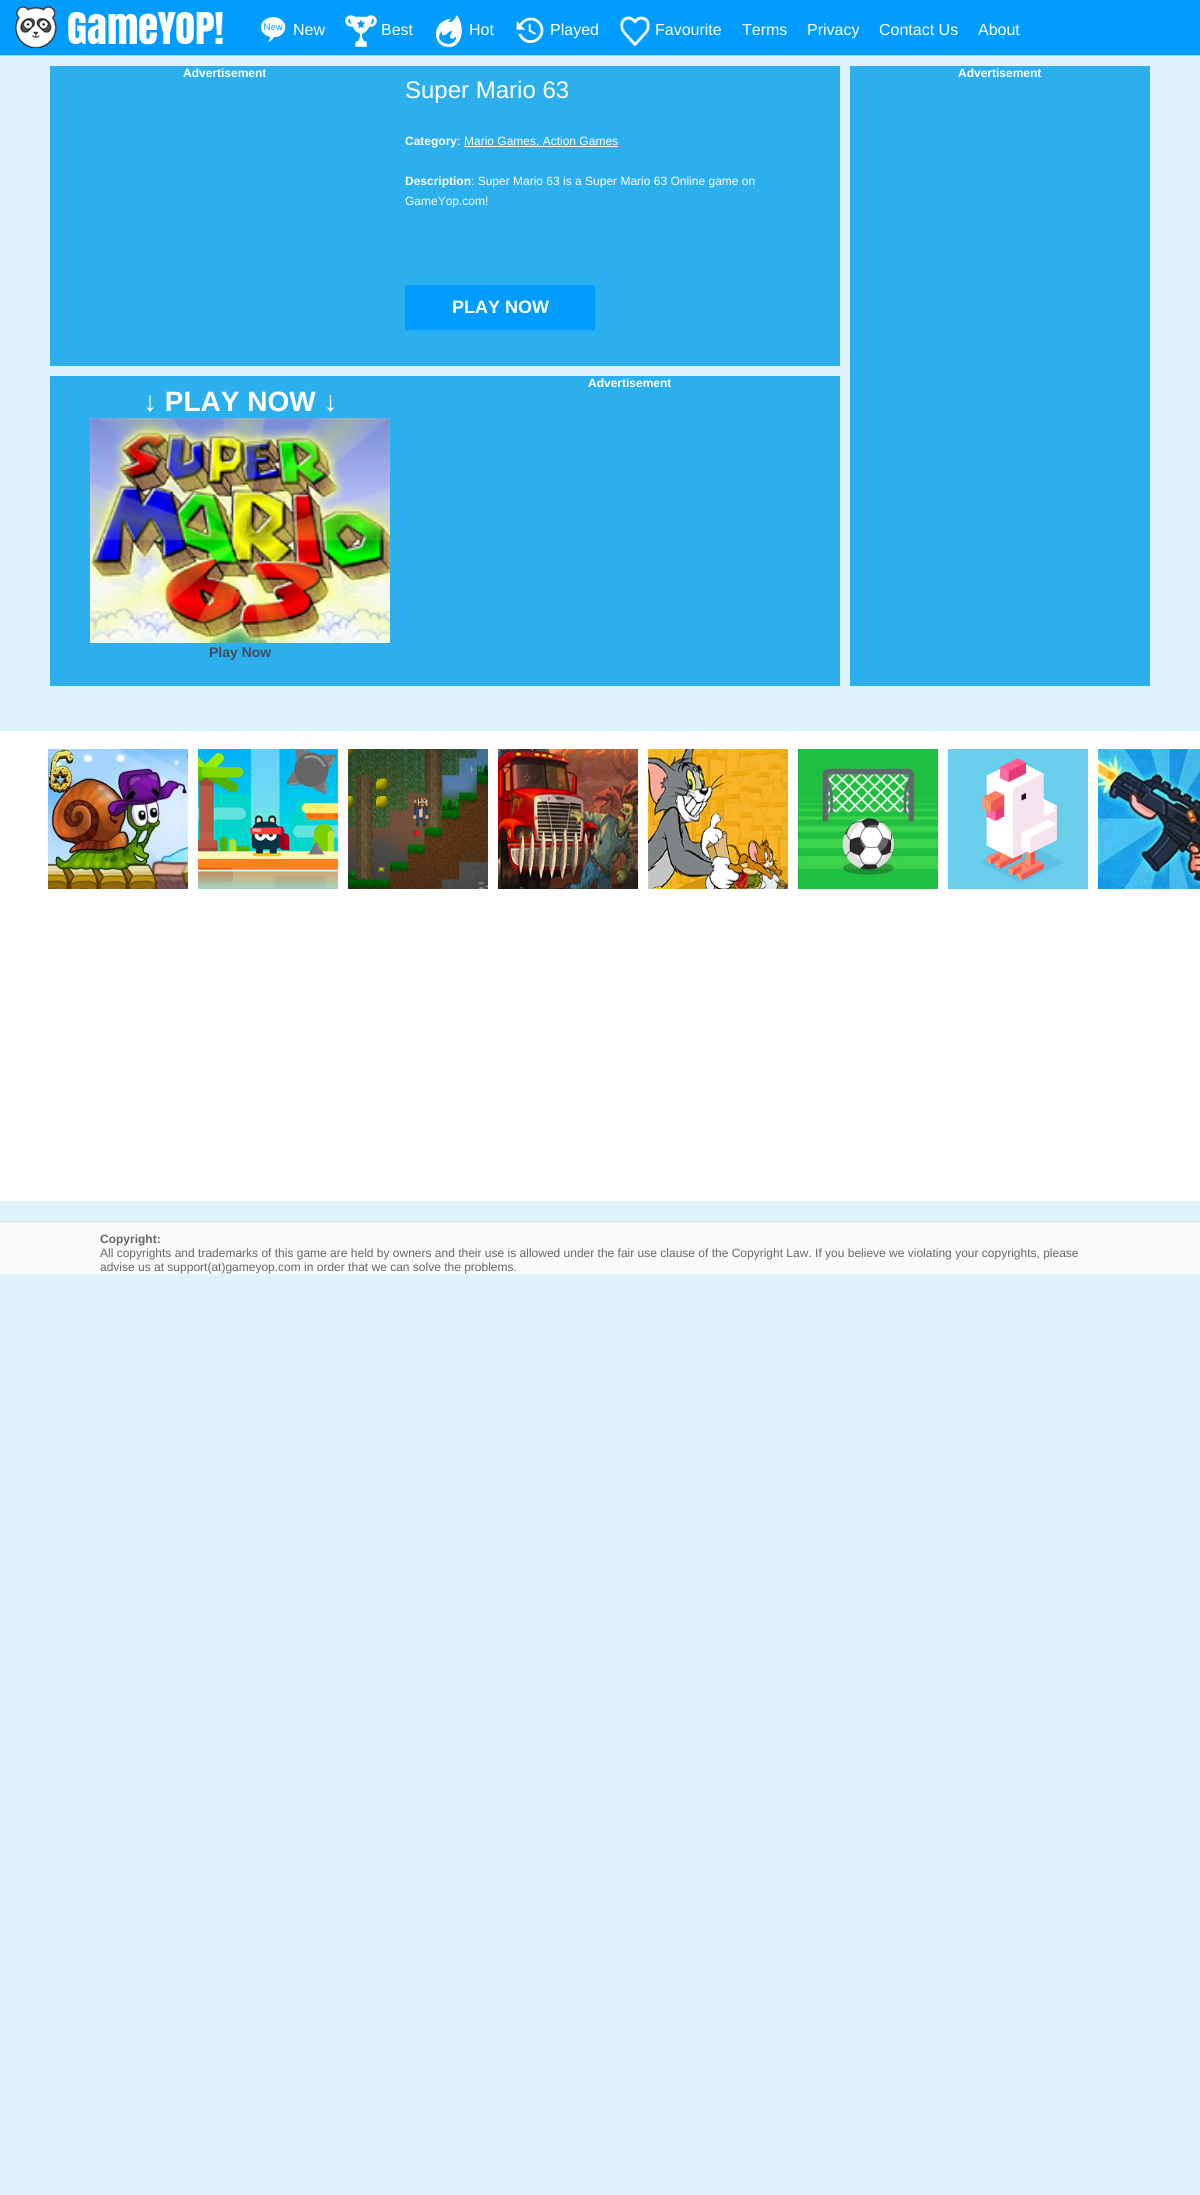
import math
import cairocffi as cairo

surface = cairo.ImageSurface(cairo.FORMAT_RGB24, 1200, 2195)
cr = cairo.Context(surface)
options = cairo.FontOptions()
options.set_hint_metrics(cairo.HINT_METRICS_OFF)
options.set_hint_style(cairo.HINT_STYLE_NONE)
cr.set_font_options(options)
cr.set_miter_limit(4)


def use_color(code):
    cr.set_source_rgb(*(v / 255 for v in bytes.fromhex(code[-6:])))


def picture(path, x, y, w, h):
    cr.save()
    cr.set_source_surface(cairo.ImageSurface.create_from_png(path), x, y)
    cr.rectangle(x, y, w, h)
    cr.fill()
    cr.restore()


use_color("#dff3ff")
cr.paint()
use_color("#009cff")
cr.rectangle(0, 0, 1200, 55)
cr.fill()
use_color("#cccccc")
cr.rectangle(0, 55, 1200, 1)
cr.fill()
picture("img1.png", 15, 6, 208, 42)
picture("img2.png", 260, 17, 26, 25)
cr.select_font_face("Liberation Sans")
cr.set_font_size(16)
use_color("#ffffff")
cr.move_to(293, 35)
cr.show_text("New")
picture("img3.png", 345, 15, 32, 32)
cr.move_to(381, 35)
cr.show_text("Best")
picture("img4.png", 436, 15, 26, 32)
cr.move_to(469, 35)
cr.show_text("Hot")
picture("img5.png", 516, 17, 28, 26)
cr.move_to(550, 35)
cr.show_text("Played")
picture("img6.png", 619, 16, 32, 30)
cr.move_to(655, 35)
cr.show_text("Favourite")
cr.move_to(742, 35)
cr.show_text("Terms")
cr.move_to(807, 35)
cr.show_text("Privacy")
cr.move_to(879, 35)
cr.show_text("Contact Us")
cr.move_to(978, 35)
cr.show_text("About")
use_color("#2bafed")
cr.rectangle(50, 66, 790, 300)
cr.fill()
cr.select_font_face("Liberation Sans", cairo.FONT_SLANT_NORMAL, cairo.FONT_WEIGHT_BOLD)
cr.set_font_size(12)
use_color("#ffffff")
cr.move_to(183, 77)
cr.show_text("Advertisement")
cr.select_font_face("Liberation Sans")
cr.set_font_size(24)
cr.move_to(405, 98)
cr.show_text("Super Mario 63")
cr.select_font_face("Liberation Sans", cairo.FONT_SLANT_NORMAL, cairo.FONT_WEIGHT_BOLD)
cr.set_font_size(12)
cr.move_to(405, 145)
cr.show_text("Category")
cr.select_font_face("Liberation Sans")
cr.move_to(457, 145)
cr.show_text(":")
cr.rectangle(464, 146, 154, 1)
cr.fill()
cr.move_to(464, 145)
cr.show_text("Mario Games, Action Games")
cr.select_font_face("Liberation Sans", cairo.FONT_SLANT_NORMAL, cairo.FONT_WEIGHT_BOLD)
cr.move_to(405, 185)
cr.show_text("Description")
cr.select_font_face("Liberation Sans")
cr.move_to(471, 185)
cr.show_text(": Super Mario 63 is a Super Mario 63 Online game on")
cr.move_to(405, 205)
cr.show_text("GameYop.com!")
use_color("#009cff")
cr.rectangle(405, 285, 190, 45)
cr.fill()
cr.select_font_face("Liberation Sans", cairo.FONT_SLANT_NORMAL, cairo.FONT_WEIGHT_BOLD)
cr.set_font_size(18)
use_color("#ffffff")
cr.move_to(452, 313)
cr.show_text("PLAY NOW")
use_color("#2bafed")
cr.rectangle(50, 376, 790, 310)
cr.fill()
cr.set_font_size(12)
use_color("#ffffff")
cr.move_to(588, 387)
cr.show_text("Advertisement")
cr.set_font_size(28)
cr.move_to(143, 411)
cr.show_text("↓ PLAY NOW ↓")
picture("img7.png", 90, 418, 300, 225)
cr.set_font_size(14)
use_color("#454d5d")
cr.move_to(209, 657)
cr.show_text("Play Now")
use_color("#2bafed")
cr.rectangle(850, 66, 300, 620)
cr.fill()
cr.set_font_size(12)
use_color("#ffffff")
cr.move_to(958, 77)
cr.show_text("Advertisement")
cr.rectangle(0, 731, 1200, 470)
cr.fill()
picture("img8.png", 48, 749, 140, 140)
picture("img9.png", 198, 749, 140, 140)
picture("img10.png", 348, 749, 140, 140)
picture("img11.png", 498, 749, 140, 140)
picture("img12.png", 648, 749, 140, 140)
picture("img13.png", 798, 749, 140, 140)
picture("img14.png", 948, 749, 140, 140)
picture("img15.png", 1098, 749, 102, 140)
use_color("#fafafa")
cr.rectangle(0, 1222, 1200, 52)
cr.fill()
use_color("#e1e1e1")
cr.rectangle(0, 1221, 1200, 1)
cr.fill()
use_color("#666666")
cr.move_to(100, 1243)
cr.show_text("Copyright:")
cr.select_font_face("Liberation Sans")
cr.move_to(100, 1257)
cr.show_text("All copyrights and trademarks of this game are held by owners and their use is allowed under the fair use clause of the Copyright Law. If you believe we violating your copyrights, please")
cr.move_to(100, 1271)
cr.show_text("advise us at support(at)gameyop.com in order that we can solve the problems.")
surface.write_to_png("result.png")
